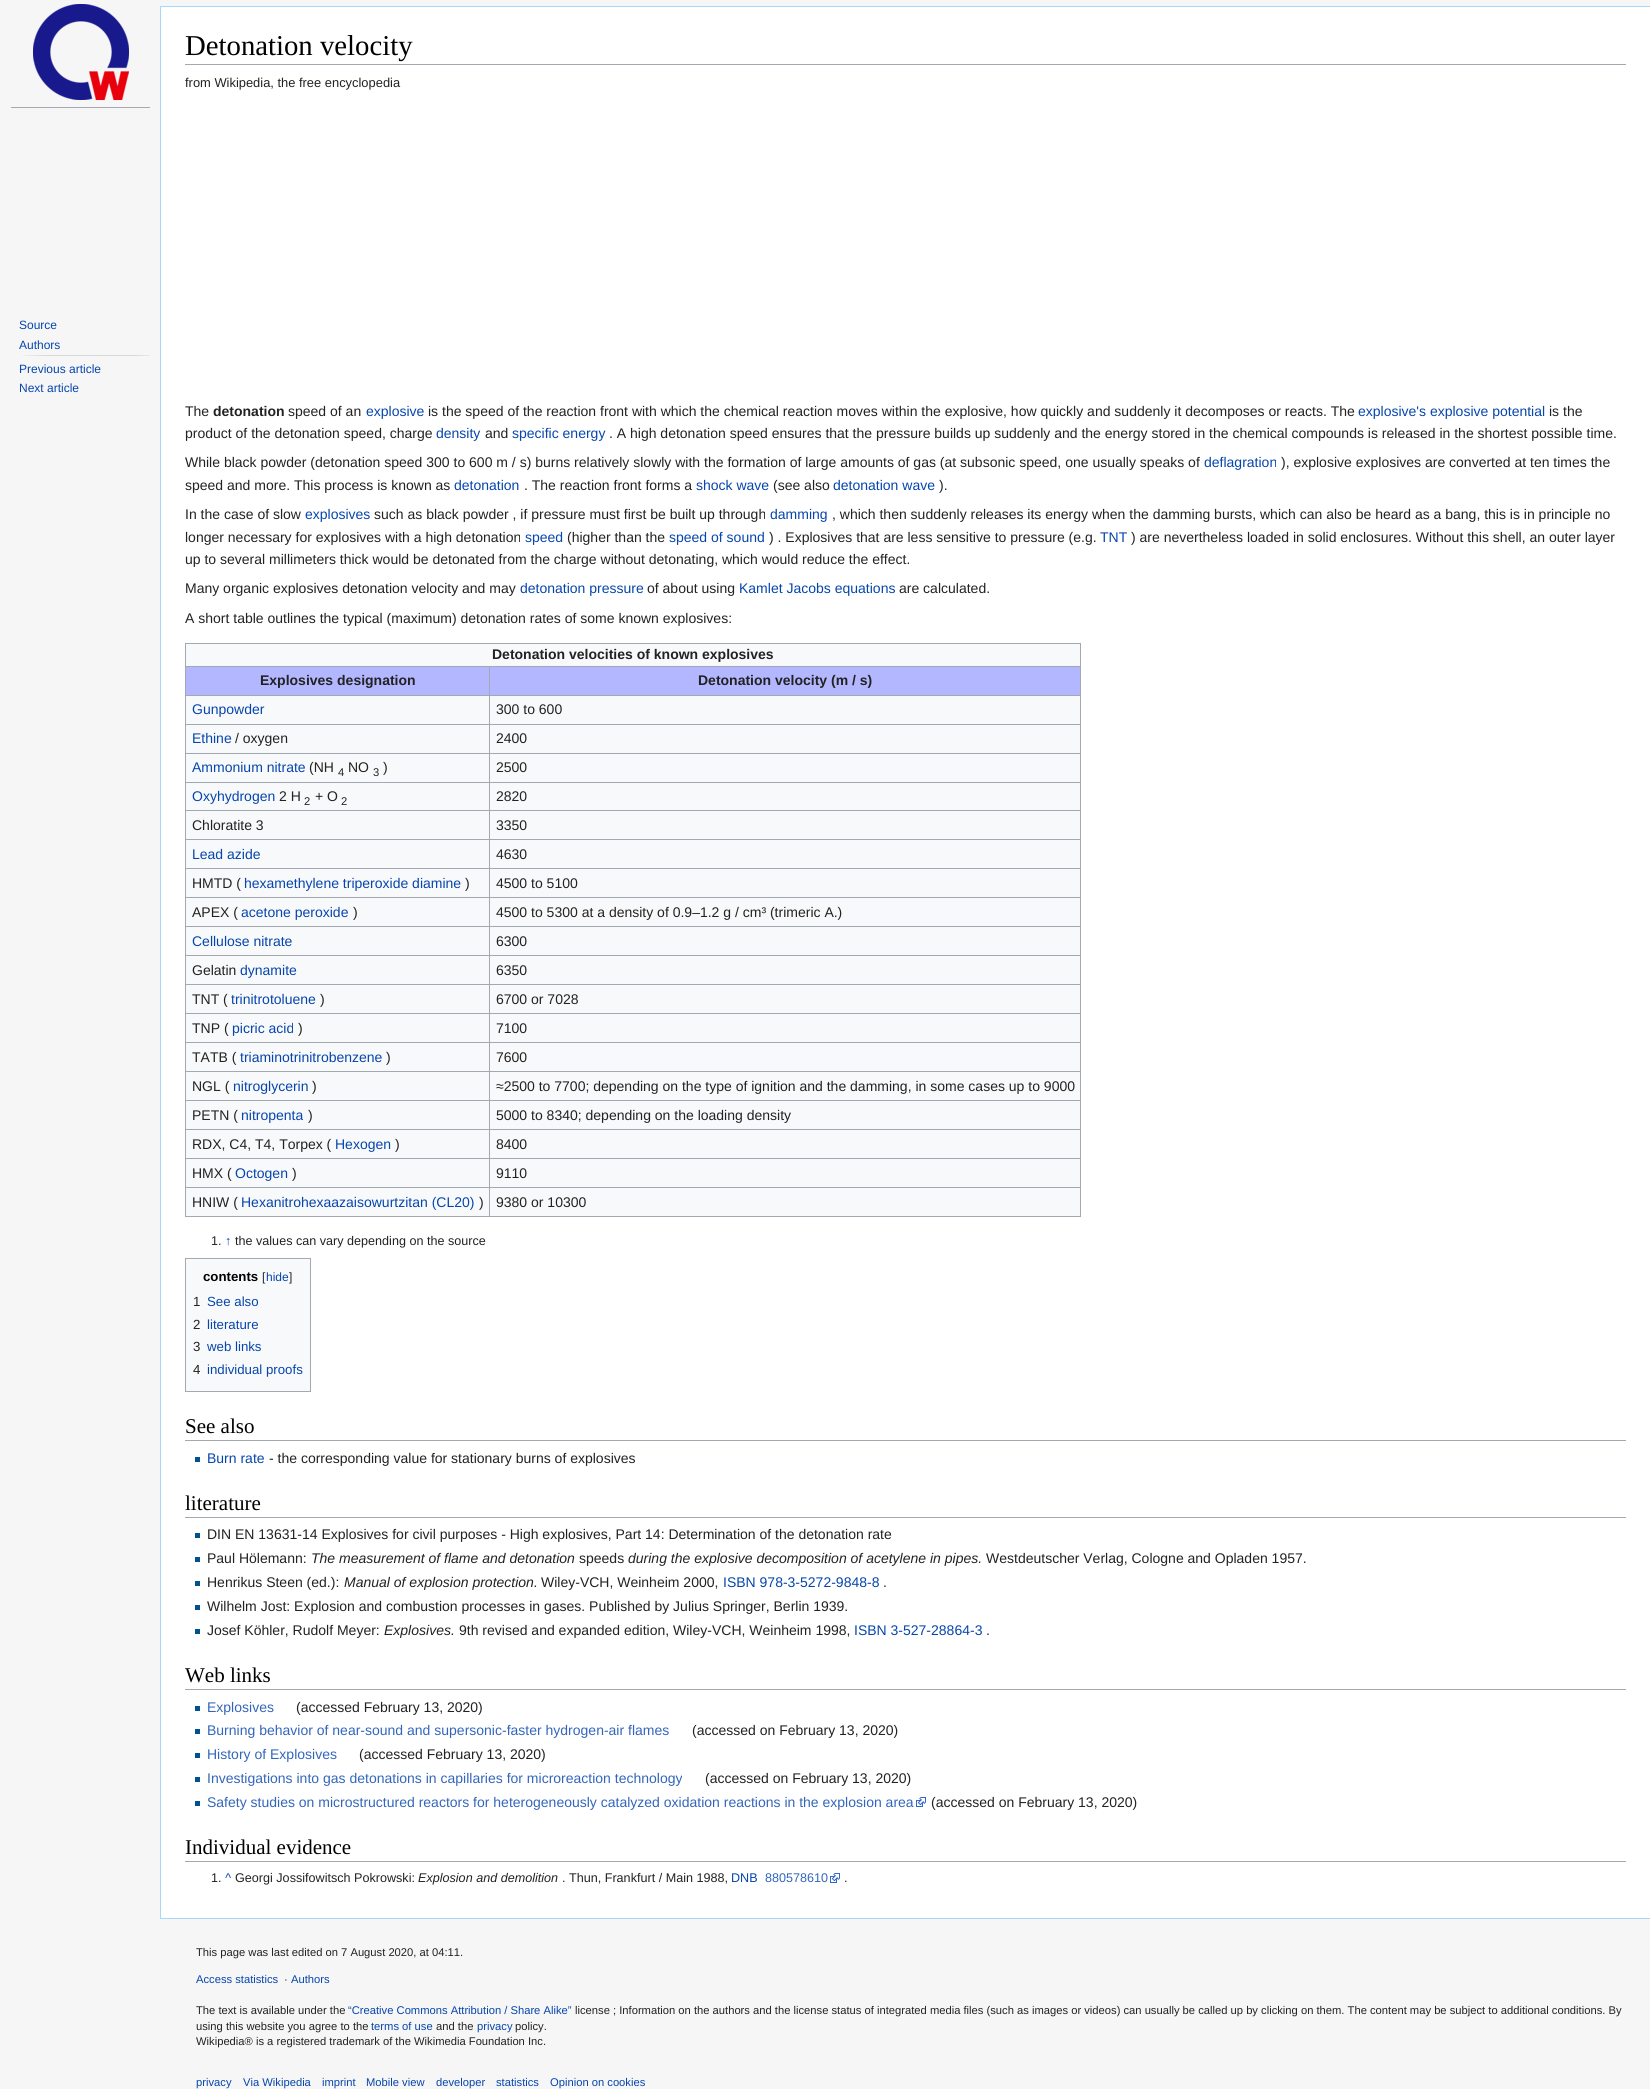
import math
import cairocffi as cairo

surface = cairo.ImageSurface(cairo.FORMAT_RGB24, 1650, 2089)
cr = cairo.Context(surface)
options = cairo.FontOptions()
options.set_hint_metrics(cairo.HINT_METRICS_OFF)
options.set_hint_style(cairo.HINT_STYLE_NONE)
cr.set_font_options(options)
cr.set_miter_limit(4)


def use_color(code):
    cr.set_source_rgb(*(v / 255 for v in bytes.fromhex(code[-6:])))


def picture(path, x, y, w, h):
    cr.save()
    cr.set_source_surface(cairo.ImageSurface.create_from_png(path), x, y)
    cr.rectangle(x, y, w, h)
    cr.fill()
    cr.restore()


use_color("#f6f6f6")
cr.paint()
picture("img1.png", 33, 4, 96, 96)
use_color("#a2a9b1")
cr.rectangle(11, 107, 139, 1)
cr.fill()
cr.select_font_face("Liberation Sans")
cr.set_font_size(12)
use_color("#0645ad")
cr.move_to(19, 329)
cr.show_text("Source")
cr.move_to(19, 349)
cr.show_text("Authors")
picture("img2.png", 22, 355, 128, 1)
cr.move_to(19, 373)
cr.show_text("Previous article")
cr.move_to(19, 392)
cr.show_text("Next article")
use_color("#ffffff")
cr.rectangle(161, 7, 1489, 1911)
cr.fill()
use_color("#a7d7f9")
cr.rectangle(160, 6, 1490, 1)
cr.fill()
cr.rectangle(160, 1918, 1490, 1)
cr.fill()
cr.rectangle(160, 6, 1, 1913)
cr.fill()
use_color("#a2a9b1")
cr.rectangle(185, 64, 1441, 1)
cr.fill()
cr.select_font_face("Liberation Serif")
cr.set_font_size(28.75)
use_color("#000000")
cr.move_to(185, 55)
cr.show_text("Detonation velocity")
cr.select_font_face("Liberation Sans")
cr.set_font_size(12.9)
use_color("#222222")
cr.move_to(185, 87)
cr.show_text("from Wikipedia, the free encyclopedia")
cr.set_font_size(14)
cr.move_to(185, 416)
cr.show_text("The")
cr.select_font_face("Liberation Sans", cairo.FONT_SLANT_NORMAL, cairo.FONT_WEIGHT_BOLD)
cr.move_to(213, 416)
cr.show_text("detonation")
cr.select_font_face("Liberation Sans")
cr.move_to(288, 416)
cr.show_text("speed of an")
use_color("#0645ad")
cr.move_to(366, 416)
cr.show_text("explosive")
use_color("#222222")
cr.move_to(428, 416)
cr.show_text("is the speed of the reaction front with which the chemical reaction moves within the explosive, how quickly and suddenly it decomposes or reacts. The")
use_color("#0645ad")
cr.move_to(1358, 416)
cr.show_text("explosive's explosive potential")
use_color("#222222")
cr.move_to(1549, 416)
cr.show_text("is the")
cr.move_to(185, 438)
cr.show_text("product of the detonation speed, charge")
use_color("#0645ad")
cr.move_to(436, 438)
cr.show_text("density")
use_color("#222222")
cr.move_to(485, 438)
cr.show_text("and")
use_color("#0645ad")
cr.move_to(512, 438)
cr.show_text("specific energy")
use_color("#222222")
cr.move_to(609, 438)
cr.show_text(". A high detonation speed ensures that the pressure builds up suddenly and the energy stored in the chemical compounds is released in the shortest possible time.")
cr.move_to(185, 467)
cr.show_text("While black powder (detonation speed 300 to 600 m / s) burns relatively slowly with the formation of large amounts of gas (at subsonic speed, one usually speaks of")
use_color("#0645ad")
cr.move_to(1204, 467)
cr.show_text("deflagration")
use_color("#222222")
cr.move_to(1281, 467)
cr.show_text("), explosive explosives are converted at ten times the")
cr.move_to(185, 490)
cr.show_text("speed and more. This process is known as")
use_color("#0645ad")
cr.move_to(454, 490)
cr.show_text("detonation")
use_color("#222222")
cr.move_to(524, 490)
cr.show_text(". The reaction front forms a")
use_color("#0645ad")
cr.move_to(696, 490)
cr.show_text("shock wave")
use_color("#222222")
cr.move_to(773, 490)
cr.show_text("(see also")
use_color("#0645ad")
cr.move_to(833, 490)
cr.show_text("detonation wave")
use_color("#222222")
cr.move_to(939, 490)
cr.show_text(").")
cr.move_to(185, 519)
cr.show_text("In the case of slow")
use_color("#0645ad")
cr.move_to(305, 519)
cr.show_text("explosives")
use_color("#222222")
cr.move_to(374, 519)
cr.show_text("such as black powder , if pressure must first be built up through")
use_color("#0645ad")
cr.move_to(770, 519)
cr.show_text("damming")
use_color("#222222")
cr.move_to(832, 519)
cr.show_text(", which then suddenly releases its energy when the damming bursts, which can also be heard as a bang, this is in principle no")
cr.move_to(185, 542)
cr.show_text("longer necessary for explosives with a high detonation")
use_color("#0645ad")
cr.move_to(525, 542)
cr.show_text("speed")
use_color("#222222")
cr.move_to(567, 542)
cr.show_text("(higher than the")
use_color("#0645ad")
cr.move_to(669, 542)
cr.show_text("speed of sound")
use_color("#222222")
cr.move_to(769, 542)
cr.show_text(") . Explosives that are less sensitive to pressure (e.g.")
use_color("#0645ad")
cr.move_to(1100, 542)
cr.show_text("TNT")
use_color("#222222")
cr.move_to(1131, 542)
cr.show_text(") are nevertheless loaded in solid enclosures. Without this shell, an outer layer")
cr.move_to(185, 564)
cr.show_text("up to several millimeters thick would be detonated from the charge without detonating, which would reduce the effect.")
cr.move_to(185, 593)
cr.show_text("Many organic explosives detonation velocity and may")
use_color("#0645ad")
cr.move_to(520, 593)
cr.show_text("detonation pressure")
use_color("#222222")
cr.move_to(647, 593)
cr.show_text("of about using")
use_color("#0645ad")
cr.move_to(739, 593)
cr.show_text("Kamlet Jacobs equations")
use_color("#222222")
cr.move_to(899, 593)
cr.show_text("are calculated.")
cr.move_to(185, 623)
cr.show_text("A short table outlines the typical (maximum) detonation rates of some known explosives:")
use_color("#f8f9fa")
cr.rectangle(186, 644, 894, 572)
cr.fill()
use_color("#a2a9b1")
cr.rectangle(185, 643, 896, 1)
cr.fill()
cr.rectangle(1080, 643, 1, 574)
cr.fill()
cr.rectangle(185, 1216, 896, 1)
cr.fill()
cr.rectangle(185, 643, 1, 574)
cr.fill()
cr.select_font_face("Liberation Sans", cairo.FONT_SLANT_NORMAL, cairo.FONT_WEIGHT_BOLD)
use_color("#222222")
cr.move_to(492, 659)
cr.show_text("Detonation velocities of known explosives")
use_color("#b3b7ff")
cr.rectangle(186, 667, 894, 28)
cr.fill()
use_color("#a2a9b1")
cr.rectangle(489, 666, 592, 1)
cr.fill()
cr.rectangle(489, 695, 592, 1)
cr.fill()
cr.rectangle(489, 724, 592, 1)
cr.fill()
cr.rectangle(489, 753, 592, 1)
cr.fill()
cr.rectangle(489, 782, 592, 1)
cr.fill()
cr.rectangle(489, 810, 592, 1)
cr.fill()
cr.rectangle(489, 839, 592, 1)
cr.fill()
cr.rectangle(489, 868, 592, 1)
cr.fill()
cr.rectangle(489, 897, 592, 1)
cr.fill()
cr.rectangle(489, 926, 592, 1)
cr.fill()
cr.rectangle(489, 955, 592, 1)
cr.fill()
cr.rectangle(489, 984, 592, 1)
cr.fill()
cr.rectangle(489, 1013, 592, 1)
cr.fill()
cr.rectangle(489, 1042, 592, 1)
cr.fill()
cr.rectangle(489, 1071, 592, 1)
cr.fill()
cr.rectangle(489, 1100, 592, 1)
cr.fill()
cr.rectangle(489, 1129, 592, 1)
cr.fill()
cr.rectangle(489, 1158, 592, 1)
cr.fill()
cr.rectangle(489, 1187, 592, 1)
cr.fill()
cr.rectangle(489, 1187, 1, 30)
cr.fill()
cr.rectangle(185, 1187, 305, 1)
cr.fill()
cr.rectangle(489, 1158, 1, 30)
cr.fill()
cr.rectangle(185, 1158, 305, 1)
cr.fill()
cr.rectangle(489, 1129, 1, 30)
cr.fill()
cr.rectangle(185, 1129, 305, 1)
cr.fill()
cr.rectangle(489, 1100, 1, 30)
cr.fill()
cr.rectangle(185, 1100, 305, 1)
cr.fill()
cr.rectangle(489, 1071, 1, 30)
cr.fill()
cr.rectangle(185, 1071, 305, 1)
cr.fill()
cr.rectangle(489, 1042, 1, 30)
cr.fill()
cr.rectangle(185, 1042, 305, 1)
cr.fill()
cr.rectangle(489, 1013, 1, 30)
cr.fill()
cr.rectangle(185, 1013, 305, 1)
cr.fill()
cr.rectangle(489, 984, 1, 30)
cr.fill()
cr.rectangle(185, 984, 305, 1)
cr.fill()
cr.rectangle(489, 955, 1, 30)
cr.fill()
cr.rectangle(185, 955, 305, 1)
cr.fill()
cr.rectangle(489, 926, 1, 30)
cr.fill()
cr.rectangle(185, 926, 305, 1)
cr.fill()
cr.rectangle(489, 897, 1, 30)
cr.fill()
cr.rectangle(185, 897, 305, 1)
cr.fill()
cr.rectangle(489, 868, 1, 30)
cr.fill()
cr.rectangle(185, 868, 305, 1)
cr.fill()
cr.rectangle(489, 839, 1, 30)
cr.fill()
cr.rectangle(185, 839, 305, 1)
cr.fill()
cr.rectangle(489, 810, 1, 30)
cr.fill()
cr.rectangle(185, 810, 305, 1)
cr.fill()
cr.rectangle(489, 782, 1, 29)
cr.fill()
cr.rectangle(185, 782, 305, 1)
cr.fill()
cr.rectangle(489, 753, 1, 30)
cr.fill()
cr.rectangle(185, 753, 305, 1)
cr.fill()
cr.rectangle(489, 724, 1, 30)
cr.fill()
cr.rectangle(185, 724, 305, 1)
cr.fill()
cr.rectangle(489, 695, 1, 30)
cr.fill()
cr.rectangle(185, 695, 305, 1)
cr.fill()
cr.rectangle(489, 666, 1, 30)
cr.fill()
cr.rectangle(185, 666, 305, 1)
cr.fill()
use_color("#222222")
cr.move_to(260, 685)
cr.show_text("Explosives designation")
cr.move_to(698, 685)
cr.show_text("Detonation velocity (m / s)")
cr.select_font_face("Liberation Sans")
use_color("#0645ad")
cr.move_to(192, 714)
cr.show_text("Gunpowder")
use_color("#222222")
cr.move_to(496, 714)
cr.show_text("300 to 600")
use_color("#0645ad")
cr.move_to(192, 743)
cr.show_text("Ethine")
use_color("#222222")
cr.move_to(235, 743)
cr.show_text("/ oxygen")
cr.move_to(496, 743)
cr.show_text("2400")
use_color("#0645ad")
cr.move_to(192, 772)
cr.show_text("Ammonium nitrate")
use_color("#222222")
cr.move_to(309, 772)
cr.show_text("(NH")
cr.set_font_size(11.2)
cr.move_to(338, 776)
cr.show_text("4")
cr.set_font_size(14)
cr.move_to(348, 772)
cr.show_text("NO")
cr.set_font_size(11.2)
cr.move_to(373, 776)
cr.show_text("3")
cr.set_font_size(14)
cr.move_to(383, 772)
cr.show_text(")")
cr.move_to(496, 772)
cr.show_text("2500")
use_color("#0645ad")
cr.move_to(192, 801)
cr.show_text("Oxyhydrogen")
use_color("#222222")
cr.move_to(279, 801)
cr.show_text("2 H")
cr.set_font_size(11.2)
cr.move_to(304, 805)
cr.show_text("2")
cr.set_font_size(14)
cr.move_to(315, 801)
cr.show_text("+ O")
cr.set_font_size(11.2)
cr.move_to(341, 805)
cr.show_text("2")
cr.set_font_size(14)
cr.move_to(496, 801)
cr.show_text("2820")
cr.move_to(192, 830)
cr.show_text("Chloratite 3")
cr.move_to(496, 830)
cr.show_text("3350")
use_color("#0645ad")
cr.move_to(192, 859)
cr.show_text("Lead azide")
use_color("#222222")
cr.move_to(496, 859)
cr.show_text("4630")
cr.move_to(192, 888)
cr.show_text("HMTD (")
use_color("#0645ad")
cr.move_to(244, 888)
cr.show_text("hexamethylene triperoxide diamine")
use_color("#222222")
cr.move_to(465, 888)
cr.show_text(")")
cr.move_to(496, 888)
cr.show_text("4500 to 5100")
cr.move_to(192, 917)
cr.show_text("APEX (")
use_color("#0645ad")
cr.move_to(241, 917)
cr.show_text("acetone peroxide")
use_color("#222222")
cr.move_to(353, 917)
cr.show_text(")")
cr.move_to(496, 917)
cr.show_text("4500 to 5300 at a density of 0.9–1.2 g / cm³ (trimeric A.)")
use_color("#0645ad")
cr.move_to(192, 946)
cr.show_text("Cellulose nitrate")
use_color("#222222")
cr.move_to(496, 946)
cr.show_text("6300")
cr.move_to(192, 975)
cr.show_text("Gelatin")
use_color("#0645ad")
cr.move_to(240, 975)
cr.show_text("dynamite")
use_color("#222222")
cr.move_to(496, 975)
cr.show_text("6350")
cr.move_to(192, 1004)
cr.show_text("TNT (")
use_color("#0645ad")
cr.move_to(231, 1004)
cr.show_text("trinitrotoluene")
use_color("#222222")
cr.move_to(320, 1004)
cr.show_text(")")
cr.move_to(496, 1004)
cr.show_text("6700 or 7028")
cr.move_to(192, 1033)
cr.show_text("TNP (")
use_color("#0645ad")
cr.move_to(232, 1033)
cr.show_text("picric acid")
use_color("#222222")
cr.move_to(298, 1033)
cr.show_text(")")
cr.move_to(496, 1033)
cr.show_text("7100")
cr.move_to(192, 1062)
cr.show_text("TATB (")
use_color("#0645ad")
cr.move_to(240, 1062)
cr.show_text("triaminotrinitrobenzene")
use_color("#222222")
cr.move_to(386, 1062)
cr.show_text(")")
cr.move_to(496, 1062)
cr.show_text("7600")
cr.move_to(192, 1091)
cr.show_text("NGL (")
use_color("#0645ad")
cr.move_to(233, 1091)
cr.show_text("nitroglycerin")
use_color("#222222")
cr.move_to(312, 1091)
cr.show_text(")")
cr.move_to(496, 1091)
cr.show_text("≈2500 to 7700; depending on the type of ignition and the damming, in some cases up to 9000")
cr.move_to(192, 1120)
cr.show_text("PETN (")
use_color("#0645ad")
cr.move_to(241, 1120)
cr.show_text("nitropenta")
use_color("#222222")
cr.move_to(308, 1120)
cr.show_text(")")
cr.move_to(496, 1120)
cr.show_text("5000 to 8340; depending on the loading density")
cr.move_to(192, 1149)
cr.show_text("RDX, C4, T4, Torpex (")
use_color("#0645ad")
cr.move_to(335, 1149)
cr.show_text("Hexogen")
use_color("#222222")
cr.move_to(395, 1149)
cr.show_text(")")
cr.move_to(496, 1149)
cr.show_text("8400")
cr.move_to(192, 1178)
cr.show_text("HMX (")
use_color("#0645ad")
cr.move_to(235, 1178)
cr.show_text("Octogen")
use_color("#222222")
cr.move_to(292, 1178)
cr.show_text(")")
cr.move_to(496, 1178)
cr.show_text("9110")
cr.move_to(192, 1207)
cr.show_text("HNIW (")
use_color("#0645ad")
cr.move_to(241, 1207)
cr.show_text("Hexanitrohexaazaisowurtzitan (CL20)")
use_color("#222222")
cr.move_to(479, 1207)
cr.show_text(")")
cr.move_to(496, 1207)
cr.show_text("9380 or 10300")
cr.set_font_size(12.6)
cr.move_to(211, 1245)
cr.show_text("1.")
cr.select_font_face("Liberation Sans", cairo.FONT_SLANT_ITALIC)
use_color("#0645ad")
cr.move_to(225, 1245)
cr.show_text("↑")
cr.select_font_face("Liberation Sans")
use_color("#222222")
cr.move_to(235, 1245)
cr.show_text("the values can vary depending on the source")
use_color("#f8f9fa")
cr.rectangle(185.5, 1258.5, 125, 133)
cr.fill_preserve()
use_color("#a2a9b1")
cr.set_line_width(1)
cr.stroke()
cr.select_font_face("Liberation Sans", cairo.FONT_SLANT_NORMAL, cairo.FONT_WEIGHT_BOLD)
cr.set_font_size(13.25)
use_color("#000000")
cr.move_to(203, 1281)
cr.show_text("contents")
cr.select_font_face("Liberation Sans")
cr.set_font_size(12)
use_color("#222222")
cr.move_to(262, 1281)
cr.show_text("[")
use_color("#0645ad")
cr.move_to(266, 1281)
cr.show_text("hide")
use_color("#222222")
cr.move_to(289, 1281)
cr.show_text("]")
cr.set_font_size(13.25)
cr.move_to(193, 1306)
cr.show_text("1")
use_color("#0645ad")
cr.move_to(207, 1306)
cr.show_text("See also")
use_color("#222222")
cr.move_to(193, 1329)
cr.show_text("2")
use_color("#0645ad")
cr.move_to(207, 1329)
cr.show_text("literature")
use_color("#222222")
cr.move_to(193, 1351)
cr.show_text("3")
use_color("#0645ad")
cr.move_to(207, 1351)
cr.show_text("web links")
use_color("#222222")
cr.move_to(193, 1374)
cr.show_text("4")
use_color("#0645ad")
cr.move_to(207, 1374)
cr.show_text("individual proofs")
use_color("#a2a9b1")
cr.rectangle(185, 1440, 1441, 1)
cr.fill()
cr.select_font_face("Liberation Serif")
cr.set_font_size(21)
use_color("#000000")
cr.move_to(185, 1433)
cr.show_text("See also")
use_color("#00528c")
cr.rectangle(195, 1457, 5, 5)
cr.fill()
cr.select_font_face("Liberation Sans")
cr.set_font_size(14)
use_color("#0645ad")
cr.move_to(207, 1463)
cr.show_text("Burn rate")
use_color("#222222")
cr.move_to(269, 1463)
cr.show_text("- the corresponding value for stationary burns of explosives")
use_color("#a2a9b1")
cr.rectangle(185, 1517, 1441, 1)
cr.fill()
cr.select_font_face("Liberation Serif")
cr.set_font_size(21)
use_color("#000000")
cr.move_to(185, 1510)
cr.show_text("literature")
use_color("#00528c")
cr.rectangle(195, 1533, 5, 5)
cr.fill()
cr.select_font_face("Liberation Sans")
cr.set_font_size(14)
use_color("#222222")
cr.move_to(207, 1539)
cr.show_text("DIN EN 13631-14 Explosives for civil purposes - High explosives, Part 14: Determination of the detonation rate")
use_color("#00528c")
cr.rectangle(195, 1557, 5, 5)
cr.fill()
use_color("#222222")
cr.move_to(207, 1563)
cr.show_text("Paul Hölemann:")
cr.select_font_face("Liberation Sans", cairo.FONT_SLANT_ITALIC)
cr.move_to(311, 1563)
cr.show_text("The measurement of flame and detonation")
cr.select_font_face("Liberation Sans")
cr.move_to(579, 1563)
cr.show_text("speeds")
cr.select_font_face("Liberation Sans", cairo.FONT_SLANT_ITALIC)
cr.move_to(628, 1563)
cr.show_text("during the explosive decomposition of acetylene in pipes.")
cr.select_font_face("Liberation Sans")
cr.move_to(986, 1563)
cr.show_text("Westdeutscher Verlag, Cologne and Opladen 1957.")
use_color("#00528c")
cr.rectangle(195, 1581, 5, 5)
cr.fill()
use_color("#222222")
cr.move_to(207, 1587)
cr.show_text("Henrikus Steen (ed.):")
cr.select_font_face("Liberation Sans", cairo.FONT_SLANT_ITALIC)
cr.move_to(344, 1587)
cr.show_text("Manual of explosion protection.")
cr.select_font_face("Liberation Sans")
cr.move_to(541, 1587)
cr.show_text("Wiley-VCH, Weinheim 2000,")
use_color("#0645ad")
cr.move_to(723, 1587)
cr.show_text("ISBN 978-3-5272-9848-8")
use_color("#222222")
cr.move_to(883, 1587)
cr.show_text(".")
use_color("#00528c")
cr.rectangle(195, 1605, 5, 5)
cr.fill()
use_color("#222222")
cr.move_to(207, 1611)
cr.show_text("Wilhelm Jost: Explosion and combustion processes in gases. Published by Julius Springer, Berlin 1939.")
use_color("#00528c")
cr.rectangle(195, 1629, 5, 5)
cr.fill()
use_color("#222222")
cr.move_to(207, 1635)
cr.show_text("Josef Köhler, Rudolf Meyer:")
cr.select_font_face("Liberation Sans", cairo.FONT_SLANT_ITALIC)
cr.move_to(384, 1635)
cr.show_text("Explosives.")
cr.select_font_face("Liberation Sans")
cr.move_to(459, 1635)
cr.show_text("9th revised and expanded edition, Wiley-VCH, Weinheim 1998,")
use_color("#0645ad")
cr.move_to(854, 1635)
cr.show_text("ISBN 3-527-28864-3")
use_color("#222222")
cr.move_to(986, 1635)
cr.show_text(".")
use_color("#a2a9b1")
cr.rectangle(185, 1689, 1441, 1)
cr.fill()
cr.select_font_face("Liberation Serif")
cr.set_font_size(21)
use_color("#000000")
cr.move_to(185, 1682)
cr.show_text("Web links")
use_color("#00528c")
cr.rectangle(195, 1706, 5, 5)
cr.fill()
cr.select_font_face("Liberation Sans")
cr.set_font_size(14)
use_color("#3366bb")
cr.move_to(207, 1712)
cr.show_text("Explosives")
use_color("#222222")
cr.move_to(296, 1712)
cr.show_text("(accessed February 13, 2020)")
use_color("#00528c")
cr.rectangle(195, 1729, 5, 5)
cr.fill()
use_color("#3366bb")
cr.move_to(207, 1735)
cr.show_text("Burning behavior of near-sound and supersonic-faster hydrogen-air flames")
use_color("#222222")
cr.move_to(692, 1735)
cr.show_text("(accessed on February 13, 2020)")
use_color("#00528c")
cr.rectangle(195, 1753, 5, 5)
cr.fill()
use_color("#3366bb")
cr.move_to(207, 1759)
cr.show_text("History of Explosives")
use_color("#222222")
cr.move_to(359, 1759)
cr.show_text("(accessed February 13, 2020)")
use_color("#00528c")
cr.rectangle(195, 1777, 5, 5)
cr.fill()
use_color("#3366bb")
cr.move_to(207, 1783)
cr.show_text("Investigations into gas detonations in capillaries for microreaction technology")
use_color("#222222")
cr.move_to(705, 1783)
cr.show_text("(accessed on February 13, 2020)")
use_color("#00528c")
cr.rectangle(195, 1801, 5, 5)
cr.fill()
use_color("#3366bb")
cr.move_to(207, 1807)
cr.show_text("Safety studies on microstructured reactors for heterogeneously catalyzed oxidation reactions in the explosion area")
picture("img3.png", 916, 1797, 10, 10)
use_color("#222222")
cr.move_to(931, 1807)
cr.show_text("(accessed on February 13, 2020)")
use_color("#a2a9b1")
cr.rectangle(185, 1861, 1441, 1)
cr.fill()
cr.select_font_face("Liberation Serif")
cr.set_font_size(21)
use_color("#000000")
cr.move_to(185, 1854)
cr.show_text("Individual evidence")
cr.select_font_face("Liberation Sans")
cr.set_font_size(12.6)
use_color("#222222")
cr.move_to(211, 1882)
cr.show_text("1.")
cr.select_font_face("Liberation Sans", cairo.FONT_SLANT_ITALIC)
use_color("#0645ad")
cr.move_to(225, 1882)
cr.show_text("^")
cr.select_font_face("Liberation Sans")
use_color("#222222")
cr.move_to(235, 1882)
cr.show_text("Georgi Jossifowitsch Pokrowski:")
cr.select_font_face("Liberation Sans", cairo.FONT_SLANT_ITALIC)
cr.move_to(418, 1882)
cr.show_text("Explosion and demolition")
cr.select_font_face("Liberation Sans")
cr.move_to(562, 1882)
cr.show_text(". Thun, Frankfurt / Main 1988,")
use_color("#0645ad")
cr.move_to(731, 1882)
cr.show_text("DNB")
use_color("#3366bb")
cr.move_to(765, 1882)
cr.show_text("880578610")
picture("img3.png", 830, 1873, 10, 10)
use_color("#222222")
cr.move_to(844, 1882)
cr.show_text(".")
cr.set_font_size(11.2)
cr.move_to(196, 1956)
cr.show_text("This page was last edited on 7 August 2020, at 04:11.")
use_color("#0645ad")
cr.move_to(196, 1983)
cr.show_text("Access statistics")
use_color("#222222")
cr.move_to(284, 1983)
cr.show_text("·")
use_color("#0645ad")
cr.move_to(291, 1983)
cr.show_text("Authors")
use_color("#222222")
cr.move_to(196, 2014)
cr.show_text("The text is available under the")
use_color("#0645ad")
cr.move_to(348, 2014)
cr.show_text("“Creative Commons Attribution / Share Alike”")
use_color("#222222")
cr.move_to(575, 2014)
cr.show_text("license ; Information on the authors and the license status of integrated media files (such as images or videos) can usually be called up by clicking on them. The content may be subject to additional conditions. By")
cr.move_to(196, 2030)
cr.show_text("using this website you agree to the")
use_color("#0645ad")
cr.move_to(371, 2030)
cr.show_text("terms of use")
use_color("#222222")
cr.move_to(436, 2030)
cr.show_text("and the")
use_color("#0645ad")
cr.move_to(477, 2030)
cr.show_text("privacy")
use_color("#222222")
cr.move_to(515, 2030)
cr.show_text("policy.")
cr.move_to(196, 2045)
cr.show_text("Wikipedia® is a registered trademark of the Wikimedia Foundation Inc.")
use_color("#0645ad")
cr.move_to(196, 2086)
cr.show_text("privacy")
cr.move_to(243, 2086)
cr.show_text("Via Wikipedia")
cr.move_to(322, 2086)
cr.show_text("imprint")
cr.move_to(366, 2086)
cr.show_text("Mobile view")
cr.move_to(436, 2086)
cr.show_text("developer")
cr.move_to(496, 2086)
cr.show_text("statistics")
cr.move_to(550, 2086)
cr.show_text("Opinion on cookies")
surface.write_to_png("result.png")
